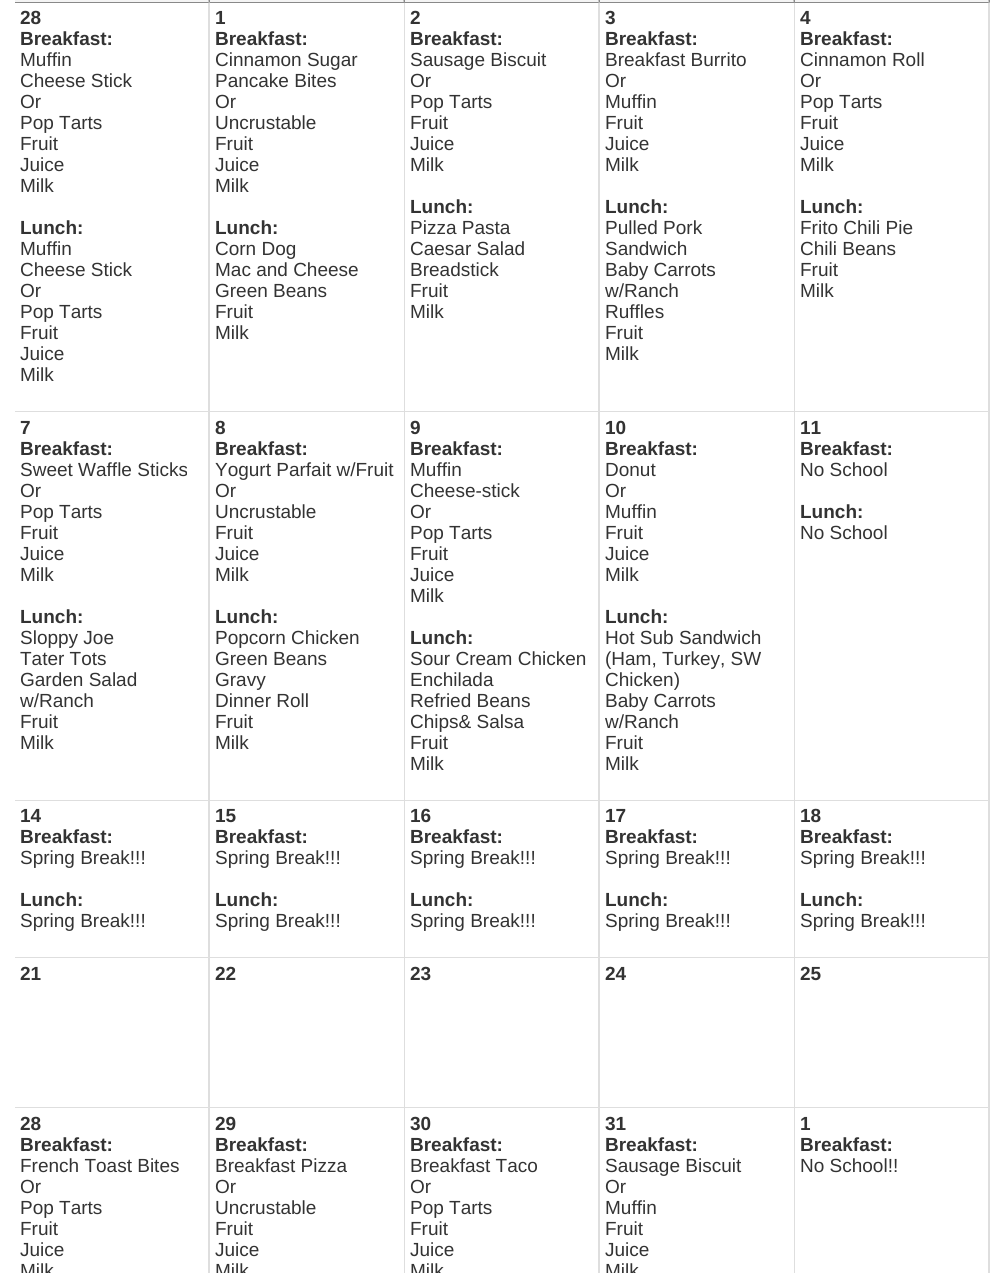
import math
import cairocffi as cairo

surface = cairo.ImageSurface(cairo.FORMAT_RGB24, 1004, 1273)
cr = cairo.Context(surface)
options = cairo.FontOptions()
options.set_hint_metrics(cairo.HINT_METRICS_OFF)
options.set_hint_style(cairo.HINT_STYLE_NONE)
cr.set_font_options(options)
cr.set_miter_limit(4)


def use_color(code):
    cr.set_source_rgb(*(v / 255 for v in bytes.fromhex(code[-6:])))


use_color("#ffffff")
cr.paint()
use_color("#f4f4f4")
cr.rectangle(15, 0, 975, 3)
cr.fill()
use_color("#898989")
cr.new_path()
cr.move_to(210, -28.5)
cr.line_to(210, 3)
cr.line_to(208.5, 1.5)
cr.line_to(208.5, -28.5)
cr.close_path()
cr.fill()
cr.new_path()
cr.move_to(210, 3)
cr.line_to(15, 3)
cr.line_to(15, 2)
cr.line_to(208, 2)
cr.close_path()
cr.fill()
cr.new_path()
cr.move_to(405, -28.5)
cr.line_to(405, 3)
cr.line_to(403.5, 1.5)
cr.line_to(403.5, -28.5)
cr.close_path()
cr.fill()
cr.set_source_rgba(0, 0, 0, 0.44)
cr.new_path()
cr.move_to(405, 3)
cr.line_to(210, 3)
cr.line_to(210, 2)
cr.line_to(404, 2)
cr.close_path()
cr.fill()
use_color("#898989")
cr.new_path()
cr.move_to(600, -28.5)
cr.line_to(600, 3)
cr.line_to(598.5, 1.5)
cr.line_to(598.5, -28.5)
cr.close_path()
cr.fill()
cr.new_path()
cr.move_to(600, 3)
cr.line_to(405, 3)
cr.line_to(405, 2)
cr.line_to(598, 2)
cr.close_path()
cr.fill()
cr.new_path()
cr.move_to(795, -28.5)
cr.line_to(795, 3)
cr.line_to(793.5, 1.5)
cr.line_to(793.5, -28.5)
cr.close_path()
cr.fill()
cr.set_source_rgba(0, 0, 0, 0.44)
cr.new_path()
cr.move_to(795, 3)
cr.line_to(600, 3)
cr.line_to(600, 2)
cr.line_to(794, 2)
cr.close_path()
cr.fill()
use_color("#898989")
cr.new_path()
cr.move_to(990, -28.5)
cr.line_to(990, 3)
cr.line_to(988.5, 1.5)
cr.line_to(988.5, -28.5)
cr.close_path()
cr.fill()
cr.new_path()
cr.move_to(990, 3)
cr.line_to(795, 3)
cr.line_to(795, 2)
cr.line_to(988, 2)
cr.close_path()
cr.fill()
use_color("#dedede")
cr.new_path()
cr.move_to(210, 3)
cr.line_to(210, 412)
cr.line_to(208, 411)
cr.line_to(208, 3)
cr.close_path()
cr.fill()
cr.set_source_rgba(0, 0, 0, 0.13)
cr.new_path()
cr.move_to(210, 412)
cr.line_to(15, 412)
cr.line_to(15, 411)
cr.line_to(208, 411)
cr.close_path()
cr.fill()
cr.select_font_face("Liberation Sans", cairo.FONT_SLANT_NORMAL, cairo.FONT_WEIGHT_BOLD)
cr.set_font_size(19)
use_color("#333333")
cr.move_to(20, 24)
cr.show_text("28")
cr.move_to(20, 45)
cr.show_text("Breakfast:")
cr.select_font_face("Liberation Sans")
cr.move_to(20, 66)
cr.show_text("Muffin")
cr.move_to(20, 87)
cr.show_text("Cheese Stick")
cr.move_to(20, 108)
cr.show_text("Or")
cr.move_to(20, 129)
cr.show_text("Pop Tarts")
cr.move_to(20, 150)
cr.show_text("Fruit")
cr.move_to(20, 171)
cr.show_text("Juice")
cr.move_to(20, 192)
cr.show_text("Milk")
cr.select_font_face("Liberation Sans", cairo.FONT_SLANT_NORMAL, cairo.FONT_WEIGHT_BOLD)
cr.move_to(20, 234)
cr.show_text("Lunch:")
cr.select_font_face("Liberation Sans")
cr.move_to(20, 255)
cr.show_text("Muffin")
cr.move_to(20, 276)
cr.show_text("Cheese Stick")
cr.move_to(20, 297)
cr.show_text("Or")
cr.move_to(20, 318)
cr.show_text("Pop Tarts")
cr.move_to(20, 339)
cr.show_text("Fruit")
cr.move_to(20, 360)
cr.show_text("Juice")
cr.move_to(20, 381)
cr.show_text("Milk")
use_color("#dedede")
cr.new_path()
cr.move_to(405, 3)
cr.line_to(405, 412)
cr.line_to(404, 411)
cr.line_to(404, 3)
cr.close_path()
cr.fill()
cr.set_source_rgba(0, 0, 0, 0.13)
cr.new_path()
cr.move_to(405, 412)
cr.line_to(210, 412)
cr.line_to(210, 411)
cr.line_to(404, 411)
cr.close_path()
cr.fill()
cr.select_font_face("Liberation Sans", cairo.FONT_SLANT_NORMAL, cairo.FONT_WEIGHT_BOLD)
use_color("#333333")
cr.move_to(215, 24)
cr.show_text("1")
cr.move_to(215, 45)
cr.show_text("Breakfast:")
cr.select_font_face("Liberation Sans")
cr.move_to(215, 66)
cr.show_text("Cinnamon Sugar")
cr.move_to(215, 87)
cr.show_text("Pancake Bites")
cr.move_to(215, 108)
cr.show_text("Or")
cr.move_to(215, 129)
cr.show_text("Uncrustable")
cr.move_to(215, 150)
cr.show_text("Fruit")
cr.move_to(215, 171)
cr.show_text("Juice")
cr.move_to(215, 192)
cr.show_text("Milk")
cr.select_font_face("Liberation Sans", cairo.FONT_SLANT_NORMAL, cairo.FONT_WEIGHT_BOLD)
cr.move_to(215, 234)
cr.show_text("Lunch:")
cr.select_font_face("Liberation Sans")
cr.move_to(215, 255)
cr.show_text("Corn Dog")
cr.move_to(215, 276)
cr.show_text("Mac and Cheese")
cr.move_to(215, 297)
cr.show_text("Green Beans")
cr.move_to(215, 318)
cr.show_text("Fruit")
cr.move_to(215, 339)
cr.show_text("Milk")
use_color("#dedede")
cr.new_path()
cr.move_to(600, 3)
cr.line_to(600, 412)
cr.line_to(598, 411)
cr.line_to(598, 3)
cr.close_path()
cr.fill()
cr.set_source_rgba(0, 0, 0, 0.13)
cr.new_path()
cr.move_to(600, 412)
cr.line_to(405, 412)
cr.line_to(405, 411)
cr.line_to(598, 411)
cr.close_path()
cr.fill()
cr.select_font_face("Liberation Sans", cairo.FONT_SLANT_NORMAL, cairo.FONT_WEIGHT_BOLD)
use_color("#333333")
cr.move_to(410, 24)
cr.show_text("2")
cr.move_to(410, 45)
cr.show_text("Breakfast:")
cr.select_font_face("Liberation Sans")
cr.move_to(410, 66)
cr.show_text("Sausage Biscuit")
cr.move_to(410, 87)
cr.show_text("Or")
cr.move_to(410, 108)
cr.show_text("Pop Tarts")
cr.move_to(410, 129)
cr.show_text("Fruit")
cr.move_to(410, 150)
cr.show_text("Juice")
cr.move_to(410, 171)
cr.show_text("Milk")
cr.select_font_face("Liberation Sans", cairo.FONT_SLANT_NORMAL, cairo.FONT_WEIGHT_BOLD)
cr.move_to(410, 213)
cr.show_text("Lunch:")
cr.select_font_face("Liberation Sans")
cr.move_to(410, 234)
cr.show_text("Pizza Pasta")
cr.move_to(410, 255)
cr.show_text("Caesar Salad")
cr.move_to(410, 276)
cr.show_text("Breadstick")
cr.move_to(410, 297)
cr.show_text("Fruit")
cr.move_to(410, 318)
cr.show_text("Milk")
use_color("#dedede")
cr.new_path()
cr.move_to(795, 3)
cr.line_to(795, 412)
cr.line_to(794, 411)
cr.line_to(794, 3)
cr.close_path()
cr.fill()
cr.set_source_rgba(0, 0, 0, 0.13)
cr.new_path()
cr.move_to(795, 412)
cr.line_to(600, 412)
cr.line_to(600, 411)
cr.line_to(794, 411)
cr.close_path()
cr.fill()
cr.select_font_face("Liberation Sans", cairo.FONT_SLANT_NORMAL, cairo.FONT_WEIGHT_BOLD)
use_color("#333333")
cr.move_to(605, 24)
cr.show_text("3")
cr.move_to(605, 45)
cr.show_text("Breakfast:")
cr.select_font_face("Liberation Sans")
cr.move_to(605, 66)
cr.show_text("Breakfast Burrito")
cr.move_to(605, 87)
cr.show_text("Or")
cr.move_to(605, 108)
cr.show_text("Muffin")
cr.move_to(605, 129)
cr.show_text("Fruit")
cr.move_to(605, 150)
cr.show_text("Juice")
cr.move_to(605, 171)
cr.show_text("Milk")
cr.select_font_face("Liberation Sans", cairo.FONT_SLANT_NORMAL, cairo.FONT_WEIGHT_BOLD)
cr.move_to(605, 213)
cr.show_text("Lunch:")
cr.select_font_face("Liberation Sans")
cr.move_to(605, 234)
cr.show_text("Pulled Pork")
cr.move_to(605, 255)
cr.show_text("Sandwich")
cr.move_to(605, 276)
cr.show_text("Baby Carrots")
cr.move_to(605, 297)
cr.show_text("w/Ranch")
cr.move_to(605, 318)
cr.show_text("Ruffles")
cr.move_to(605, 339)
cr.show_text("Fruit")
cr.move_to(605, 360)
cr.show_text("Milk")
use_color("#dedede")
cr.new_path()
cr.move_to(990, 3)
cr.line_to(990, 412)
cr.line_to(988, 411)
cr.line_to(988, 3)
cr.close_path()
cr.fill()
cr.set_source_rgba(0, 0, 0, 0.13)
cr.new_path()
cr.move_to(990, 412)
cr.line_to(795, 412)
cr.line_to(795, 411)
cr.line_to(988, 411)
cr.close_path()
cr.fill()
cr.select_font_face("Liberation Sans", cairo.FONT_SLANT_NORMAL, cairo.FONT_WEIGHT_BOLD)
use_color("#333333")
cr.move_to(800, 24)
cr.show_text("4")
cr.move_to(800, 45)
cr.show_text("Breakfast:")
cr.select_font_face("Liberation Sans")
cr.move_to(800, 66)
cr.show_text("Cinnamon Roll")
cr.move_to(800, 87)
cr.show_text("Or")
cr.move_to(800, 108)
cr.show_text("Pop Tarts")
cr.move_to(800, 129)
cr.show_text("Fruit")
cr.move_to(800, 150)
cr.show_text("Juice")
cr.move_to(800, 171)
cr.show_text("Milk")
cr.select_font_face("Liberation Sans", cairo.FONT_SLANT_NORMAL, cairo.FONT_WEIGHT_BOLD)
cr.move_to(800, 213)
cr.show_text("Lunch:")
cr.select_font_face("Liberation Sans")
cr.move_to(800, 234)
cr.show_text("Frito Chili Pie")
cr.move_to(800, 255)
cr.show_text("Chili Beans")
cr.move_to(800, 276)
cr.show_text("Fruit")
cr.move_to(800, 297)
cr.show_text("Milk")
use_color("#dedede")
cr.new_path()
cr.move_to(210, 412)
cr.line_to(210, 801)
cr.line_to(208, 800)
cr.line_to(208, 412)
cr.close_path()
cr.fill()
cr.set_source_rgba(0, 0, 0, 0.13)
cr.new_path()
cr.move_to(210, 801)
cr.line_to(15, 801)
cr.line_to(15, 800)
cr.line_to(208, 800)
cr.close_path()
cr.fill()
cr.select_font_face("Liberation Sans", cairo.FONT_SLANT_NORMAL, cairo.FONT_WEIGHT_BOLD)
use_color("#333333")
cr.move_to(20, 434)
cr.show_text("7")
cr.move_to(20, 455)
cr.show_text("Breakfast:")
cr.select_font_face("Liberation Sans")
cr.move_to(20, 476)
cr.show_text("Sweet Waffle Sticks")
cr.move_to(20, 497)
cr.show_text("Or")
cr.move_to(20, 518)
cr.show_text("Pop Tarts")
cr.move_to(20, 539)
cr.show_text("Fruit")
cr.move_to(20, 560)
cr.show_text("Juice")
cr.move_to(20, 581)
cr.show_text("Milk")
cr.select_font_face("Liberation Sans", cairo.FONT_SLANT_NORMAL, cairo.FONT_WEIGHT_BOLD)
cr.move_to(20, 623)
cr.show_text("Lunch:")
cr.select_font_face("Liberation Sans")
cr.move_to(20, 644)
cr.show_text("Sloppy Joe")
cr.move_to(20, 665)
cr.show_text("Tater Tots")
cr.move_to(20, 686)
cr.show_text("Garden Salad")
cr.move_to(20, 707)
cr.show_text("w/Ranch")
cr.move_to(20, 728)
cr.show_text("Fruit")
cr.move_to(20, 749)
cr.show_text("Milk")
use_color("#dedede")
cr.new_path()
cr.move_to(405, 412)
cr.line_to(405, 801)
cr.line_to(404, 800)
cr.line_to(404, 412)
cr.close_path()
cr.fill()
cr.set_source_rgba(0, 0, 0, 0.13)
cr.new_path()
cr.move_to(405, 801)
cr.line_to(210, 801)
cr.line_to(210, 800)
cr.line_to(404, 800)
cr.close_path()
cr.fill()
cr.select_font_face("Liberation Sans", cairo.FONT_SLANT_NORMAL, cairo.FONT_WEIGHT_BOLD)
use_color("#333333")
cr.move_to(215, 434)
cr.show_text("8")
cr.move_to(215, 455)
cr.show_text("Breakfast:")
cr.select_font_face("Liberation Sans")
cr.move_to(215, 476)
cr.show_text("Yogurt Parfait w/Fruit")
cr.move_to(215, 497)
cr.show_text("Or")
cr.move_to(215, 518)
cr.show_text("Uncrustable")
cr.move_to(215, 539)
cr.show_text("Fruit")
cr.move_to(215, 560)
cr.show_text("Juice")
cr.move_to(215, 581)
cr.show_text("Milk")
cr.select_font_face("Liberation Sans", cairo.FONT_SLANT_NORMAL, cairo.FONT_WEIGHT_BOLD)
cr.move_to(215, 623)
cr.show_text("Lunch:")
cr.select_font_face("Liberation Sans")
cr.move_to(215, 644)
cr.show_text("Popcorn Chicken")
cr.move_to(215, 665)
cr.show_text("Green Beans")
cr.move_to(215, 686)
cr.show_text("Gravy")
cr.move_to(215, 707)
cr.show_text("Dinner Roll")
cr.move_to(215, 728)
cr.show_text("Fruit")
cr.move_to(215, 749)
cr.show_text("Milk")
use_color("#dedede")
cr.new_path()
cr.move_to(600, 412)
cr.line_to(600, 801)
cr.line_to(598, 800)
cr.line_to(598, 412)
cr.close_path()
cr.fill()
cr.set_source_rgba(0, 0, 0, 0.13)
cr.new_path()
cr.move_to(600, 801)
cr.line_to(405, 801)
cr.line_to(405, 800)
cr.line_to(598, 800)
cr.close_path()
cr.fill()
cr.select_font_face("Liberation Sans", cairo.FONT_SLANT_NORMAL, cairo.FONT_WEIGHT_BOLD)
use_color("#333333")
cr.move_to(410, 434)
cr.show_text("9")
cr.move_to(410, 455)
cr.show_text("Breakfast:")
cr.select_font_face("Liberation Sans")
cr.move_to(410, 476)
cr.show_text("Muffin")
cr.move_to(410, 497)
cr.show_text("Cheese-stick")
cr.move_to(410, 518)
cr.show_text("Or")
cr.move_to(410, 539)
cr.show_text("Pop Tarts")
cr.move_to(410, 560)
cr.show_text("Fruit")
cr.move_to(410, 581)
cr.show_text("Juice")
cr.move_to(410, 602)
cr.show_text("Milk")
cr.select_font_face("Liberation Sans", cairo.FONT_SLANT_NORMAL, cairo.FONT_WEIGHT_BOLD)
cr.move_to(410, 644)
cr.show_text("Lunch:")
cr.select_font_face("Liberation Sans")
cr.move_to(410, 665)
cr.show_text("Sour Cream Chicken")
cr.move_to(410, 686)
cr.show_text("Enchilada")
cr.move_to(410, 707)
cr.show_text("Refried Beans")
cr.move_to(410, 728)
cr.show_text("Chips& Salsa")
cr.move_to(410, 749)
cr.show_text("Fruit")
cr.move_to(410, 770)
cr.show_text("Milk")
use_color("#dedede")
cr.new_path()
cr.move_to(795, 412)
cr.line_to(795, 801)
cr.line_to(794, 800)
cr.line_to(794, 412)
cr.close_path()
cr.fill()
cr.set_source_rgba(0, 0, 0, 0.13)
cr.new_path()
cr.move_to(795, 801)
cr.line_to(600, 801)
cr.line_to(600, 800)
cr.line_to(794, 800)
cr.close_path()
cr.fill()
cr.select_font_face("Liberation Sans", cairo.FONT_SLANT_NORMAL, cairo.FONT_WEIGHT_BOLD)
use_color("#333333")
cr.move_to(605, 434)
cr.show_text("10")
cr.move_to(605, 455)
cr.show_text("Breakfast:")
cr.select_font_face("Liberation Sans")
cr.move_to(605, 476)
cr.show_text("Donut")
cr.move_to(605, 497)
cr.show_text("Or")
cr.move_to(605, 518)
cr.show_text("Muffin")
cr.move_to(605, 539)
cr.show_text("Fruit")
cr.move_to(605, 560)
cr.show_text("Juice")
cr.move_to(605, 581)
cr.show_text("Milk")
cr.select_font_face("Liberation Sans", cairo.FONT_SLANT_NORMAL, cairo.FONT_WEIGHT_BOLD)
cr.move_to(605, 623)
cr.show_text("Lunch:")
cr.select_font_face("Liberation Sans")
cr.move_to(605, 644)
cr.show_text("Hot Sub Sandwich")
cr.move_to(605, 665)
cr.show_text("(Ham, Turkey, SW")
cr.move_to(605, 686)
cr.show_text("Chicken)")
cr.move_to(605, 707)
cr.show_text("Baby Carrots")
cr.move_to(605, 728)
cr.show_text("w/Ranch")
cr.move_to(605, 749)
cr.show_text("Fruit")
cr.move_to(605, 770)
cr.show_text("Milk")
use_color("#dedede")
cr.new_path()
cr.move_to(990, 412)
cr.line_to(990, 801)
cr.line_to(988, 800)
cr.line_to(988, 412)
cr.close_path()
cr.fill()
cr.set_source_rgba(0, 0, 0, 0.13)
cr.new_path()
cr.move_to(990, 801)
cr.line_to(795, 801)
cr.line_to(795, 800)
cr.line_to(988, 800)
cr.close_path()
cr.fill()
cr.select_font_face("Liberation Sans", cairo.FONT_SLANT_NORMAL, cairo.FONT_WEIGHT_BOLD)
use_color("#333333")
cr.move_to(800, 434)
cr.show_text("11")
cr.move_to(800, 455)
cr.show_text("Breakfast:")
cr.select_font_face("Liberation Sans")
cr.move_to(800, 476)
cr.show_text("No School")
cr.select_font_face("Liberation Sans", cairo.FONT_SLANT_NORMAL, cairo.FONT_WEIGHT_BOLD)
cr.move_to(800, 518)
cr.show_text("Lunch:")
cr.select_font_face("Liberation Sans")
cr.move_to(800, 539)
cr.show_text("No School")
use_color("#dedede")
cr.new_path()
cr.move_to(210, 801)
cr.line_to(210, 958)
cr.line_to(208, 957)
cr.line_to(208, 801)
cr.close_path()
cr.fill()
cr.set_source_rgba(0, 0, 0, 0.13)
cr.new_path()
cr.move_to(210, 958)
cr.line_to(15, 958)
cr.line_to(15, 957)
cr.line_to(208, 957)
cr.close_path()
cr.fill()
cr.select_font_face("Liberation Sans", cairo.FONT_SLANT_NORMAL, cairo.FONT_WEIGHT_BOLD)
use_color("#333333")
cr.move_to(20, 822)
cr.show_text("14")
cr.move_to(20, 843)
cr.show_text("Breakfast:")
cr.select_font_face("Liberation Sans")
cr.move_to(20, 864)
cr.show_text("Spring Break!!!")
cr.select_font_face("Liberation Sans", cairo.FONT_SLANT_NORMAL, cairo.FONT_WEIGHT_BOLD)
cr.move_to(20, 906)
cr.show_text("Lunch:")
cr.select_font_face("Liberation Sans")
cr.move_to(20, 927)
cr.show_text("Spring Break!!!")
use_color("#dedede")
cr.new_path()
cr.move_to(405, 801)
cr.line_to(405, 958)
cr.line_to(404, 957)
cr.line_to(404, 801)
cr.close_path()
cr.fill()
cr.set_source_rgba(0, 0, 0, 0.13)
cr.new_path()
cr.move_to(405, 958)
cr.line_to(210, 958)
cr.line_to(210, 957)
cr.line_to(404, 957)
cr.close_path()
cr.fill()
cr.select_font_face("Liberation Sans", cairo.FONT_SLANT_NORMAL, cairo.FONT_WEIGHT_BOLD)
use_color("#333333")
cr.move_to(215, 822)
cr.show_text("15")
cr.move_to(215, 843)
cr.show_text("Breakfast:")
cr.select_font_face("Liberation Sans")
cr.move_to(215, 864)
cr.show_text("Spring Break!!!")
cr.select_font_face("Liberation Sans", cairo.FONT_SLANT_NORMAL, cairo.FONT_WEIGHT_BOLD)
cr.move_to(215, 906)
cr.show_text("Lunch:")
cr.select_font_face("Liberation Sans")
cr.move_to(215, 927)
cr.show_text("Spring Break!!!")
use_color("#dedede")
cr.new_path()
cr.move_to(600, 801)
cr.line_to(600, 958)
cr.line_to(598, 957)
cr.line_to(598, 801)
cr.close_path()
cr.fill()
cr.set_source_rgba(0, 0, 0, 0.13)
cr.new_path()
cr.move_to(600, 958)
cr.line_to(405, 958)
cr.line_to(405, 957)
cr.line_to(598, 957)
cr.close_path()
cr.fill()
cr.select_font_face("Liberation Sans", cairo.FONT_SLANT_NORMAL, cairo.FONT_WEIGHT_BOLD)
use_color("#333333")
cr.move_to(410, 822)
cr.show_text("16")
cr.move_to(410, 843)
cr.show_text("Breakfast:")
cr.select_font_face("Liberation Sans")
cr.move_to(410, 864)
cr.show_text("Spring Break!!!")
cr.select_font_face("Liberation Sans", cairo.FONT_SLANT_NORMAL, cairo.FONT_WEIGHT_BOLD)
cr.move_to(410, 906)
cr.show_text("Lunch:")
cr.select_font_face("Liberation Sans")
cr.move_to(410, 927)
cr.show_text("Spring Break!!!")
use_color("#dedede")
cr.new_path()
cr.move_to(795, 801)
cr.line_to(795, 958)
cr.line_to(794, 957)
cr.line_to(794, 801)
cr.close_path()
cr.fill()
cr.set_source_rgba(0, 0, 0, 0.13)
cr.new_path()
cr.move_to(795, 958)
cr.line_to(600, 958)
cr.line_to(600, 957)
cr.line_to(794, 957)
cr.close_path()
cr.fill()
cr.select_font_face("Liberation Sans", cairo.FONT_SLANT_NORMAL, cairo.FONT_WEIGHT_BOLD)
use_color("#333333")
cr.move_to(605, 822)
cr.show_text("17")
cr.move_to(605, 843)
cr.show_text("Breakfast:")
cr.select_font_face("Liberation Sans")
cr.move_to(605, 864)
cr.show_text("Spring Break!!!")
cr.select_font_face("Liberation Sans", cairo.FONT_SLANT_NORMAL, cairo.FONT_WEIGHT_BOLD)
cr.move_to(605, 906)
cr.show_text("Lunch:")
cr.select_font_face("Liberation Sans")
cr.move_to(605, 927)
cr.show_text("Spring Break!!!")
use_color("#dedede")
cr.new_path()
cr.move_to(990, 801)
cr.line_to(990, 958)
cr.line_to(988, 957)
cr.line_to(988, 801)
cr.close_path()
cr.fill()
cr.set_source_rgba(0, 0, 0, 0.13)
cr.new_path()
cr.move_to(990, 958)
cr.line_to(795, 958)
cr.line_to(795, 957)
cr.line_to(988, 957)
cr.close_path()
cr.fill()
cr.select_font_face("Liberation Sans", cairo.FONT_SLANT_NORMAL, cairo.FONT_WEIGHT_BOLD)
use_color("#333333")
cr.move_to(800, 822)
cr.show_text("18")
cr.move_to(800, 843)
cr.show_text("Breakfast:")
cr.select_font_face("Liberation Sans")
cr.move_to(800, 864)
cr.show_text("Spring Break!!!")
cr.select_font_face("Liberation Sans", cairo.FONT_SLANT_NORMAL, cairo.FONT_WEIGHT_BOLD)
cr.move_to(800, 906)
cr.show_text("Lunch:")
cr.select_font_face("Liberation Sans")
cr.move_to(800, 927)
cr.show_text("Spring Break!!!")
use_color("#dedede")
cr.new_path()
cr.move_to(210, 958)
cr.line_to(210, 1108)
cr.line_to(208, 1107)
cr.line_to(208, 958)
cr.close_path()
cr.fill()
cr.set_source_rgba(0, 0, 0, 0.13)
cr.new_path()
cr.move_to(210, 1108)
cr.line_to(15, 1108)
cr.line_to(15, 1107)
cr.line_to(208, 1107)
cr.close_path()
cr.fill()
cr.select_font_face("Liberation Sans", cairo.FONT_SLANT_NORMAL, cairo.FONT_WEIGHT_BOLD)
use_color("#333333")
cr.move_to(20, 980)
cr.show_text("21")
use_color("#dedede")
cr.new_path()
cr.move_to(405, 958)
cr.line_to(405, 1108)
cr.line_to(404, 1107)
cr.line_to(404, 958)
cr.close_path()
cr.fill()
cr.set_source_rgba(0, 0, 0, 0.13)
cr.new_path()
cr.move_to(405, 1108)
cr.line_to(210, 1108)
cr.line_to(210, 1107)
cr.line_to(404, 1107)
cr.close_path()
cr.fill()
use_color("#333333")
cr.move_to(215, 980)
cr.show_text("22")
use_color("#dedede")
cr.new_path()
cr.move_to(600, 958)
cr.line_to(600, 1108)
cr.line_to(598, 1107)
cr.line_to(598, 958)
cr.close_path()
cr.fill()
cr.set_source_rgba(0, 0, 0, 0.13)
cr.new_path()
cr.move_to(600, 1108)
cr.line_to(405, 1108)
cr.line_to(405, 1107)
cr.line_to(598, 1107)
cr.close_path()
cr.fill()
use_color("#333333")
cr.move_to(410, 980)
cr.show_text("23")
use_color("#dedede")
cr.new_path()
cr.move_to(795, 958)
cr.line_to(795, 1108)
cr.line_to(794, 1107)
cr.line_to(794, 958)
cr.close_path()
cr.fill()
cr.set_source_rgba(0, 0, 0, 0.13)
cr.new_path()
cr.move_to(795, 1108)
cr.line_to(600, 1108)
cr.line_to(600, 1107)
cr.line_to(794, 1107)
cr.close_path()
cr.fill()
use_color("#333333")
cr.move_to(605, 980)
cr.show_text("24")
use_color("#dedede")
cr.new_path()
cr.move_to(990, 958)
cr.line_to(990, 1108)
cr.line_to(988, 1107)
cr.line_to(988, 958)
cr.close_path()
cr.fill()
cr.set_source_rgba(0, 0, 0, 0.13)
cr.new_path()
cr.move_to(990, 1108)
cr.line_to(795, 1108)
cr.line_to(795, 1107)
cr.line_to(988, 1107)
cr.close_path()
cr.fill()
use_color("#333333")
cr.move_to(800, 980)
cr.show_text("25")
use_color("#dedede")
cr.new_path()
cr.move_to(210, 1108)
cr.line_to(210, 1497)
cr.line_to(208, 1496)
cr.line_to(208, 1108)
cr.close_path()
cr.fill()
use_color("#333333")
cr.move_to(20, 1130)
cr.show_text("28")
cr.move_to(20, 1151)
cr.show_text("Breakfast:")
cr.select_font_face("Liberation Sans")
cr.move_to(20, 1172)
cr.show_text("French Toast Bites")
cr.move_to(20, 1193)
cr.show_text("Or")
cr.move_to(20, 1214)
cr.show_text("Pop Tarts")
cr.move_to(20, 1235)
cr.show_text("Fruit")
cr.move_to(20, 1256)
cr.show_text("Juice")
cr.move_to(20, 1277)
cr.show_text("Milk")
use_color("#dedede")
cr.new_path()
cr.move_to(405, 1108)
cr.line_to(405, 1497)
cr.line_to(404, 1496)
cr.line_to(404, 1108)
cr.close_path()
cr.fill()
cr.select_font_face("Liberation Sans", cairo.FONT_SLANT_NORMAL, cairo.FONT_WEIGHT_BOLD)
use_color("#333333")
cr.move_to(215, 1130)
cr.show_text("29")
cr.move_to(215, 1151)
cr.show_text("Breakfast:")
cr.select_font_face("Liberation Sans")
cr.move_to(215, 1172)
cr.show_text("Breakfast Pizza")
cr.move_to(215, 1193)
cr.show_text("Or")
cr.move_to(215, 1214)
cr.show_text("Uncrustable")
cr.move_to(215, 1235)
cr.show_text("Fruit")
cr.move_to(215, 1256)
cr.show_text("Juice")
cr.move_to(215, 1277)
cr.show_text("Milk")
use_color("#dedede")
cr.new_path()
cr.move_to(600, 1108)
cr.line_to(600, 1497)
cr.line_to(598, 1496)
cr.line_to(598, 1108)
cr.close_path()
cr.fill()
cr.select_font_face("Liberation Sans", cairo.FONT_SLANT_NORMAL, cairo.FONT_WEIGHT_BOLD)
use_color("#333333")
cr.move_to(410, 1130)
cr.show_text("30")
cr.move_to(410, 1151)
cr.show_text("Breakfast:")
cr.select_font_face("Liberation Sans")
cr.move_to(410, 1172)
cr.show_text("Breakfast Taco")
cr.move_to(410, 1193)
cr.show_text("Or")
cr.move_to(410, 1214)
cr.show_text("Pop Tarts")
cr.move_to(410, 1235)
cr.show_text("Fruit")
cr.move_to(410, 1256)
cr.show_text("Juice")
cr.move_to(410, 1277)
cr.show_text("Milk")
use_color("#dedede")
cr.new_path()
cr.move_to(795, 1108)
cr.line_to(795, 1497)
cr.line_to(794, 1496)
cr.line_to(794, 1108)
cr.close_path()
cr.fill()
cr.select_font_face("Liberation Sans", cairo.FONT_SLANT_NORMAL, cairo.FONT_WEIGHT_BOLD)
use_color("#333333")
cr.move_to(605, 1130)
cr.show_text("31")
cr.move_to(605, 1151)
cr.show_text("Breakfast:")
cr.select_font_face("Liberation Sans")
cr.move_to(605, 1172)
cr.show_text("Sausage Biscuit")
cr.move_to(605, 1193)
cr.show_text("Or")
cr.move_to(605, 1214)
cr.show_text("Muffin")
cr.move_to(605, 1235)
cr.show_text("Fruit")
cr.move_to(605, 1256)
cr.show_text("Juice")
cr.move_to(605, 1277)
cr.show_text("Milk")
use_color("#dedede")
cr.new_path()
cr.move_to(990, 1108)
cr.line_to(990, 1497)
cr.line_to(988, 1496)
cr.line_to(988, 1108)
cr.close_path()
cr.fill()
cr.select_font_face("Liberation Sans", cairo.FONT_SLANT_NORMAL, cairo.FONT_WEIGHT_BOLD)
use_color("#333333")
cr.move_to(800, 1130)
cr.show_text("1")
cr.move_to(800, 1151)
cr.show_text("Breakfast:")
cr.select_font_face("Liberation Sans")
cr.move_to(800, 1172)
cr.show_text("No School!!")
surface.write_to_png("result.png")
